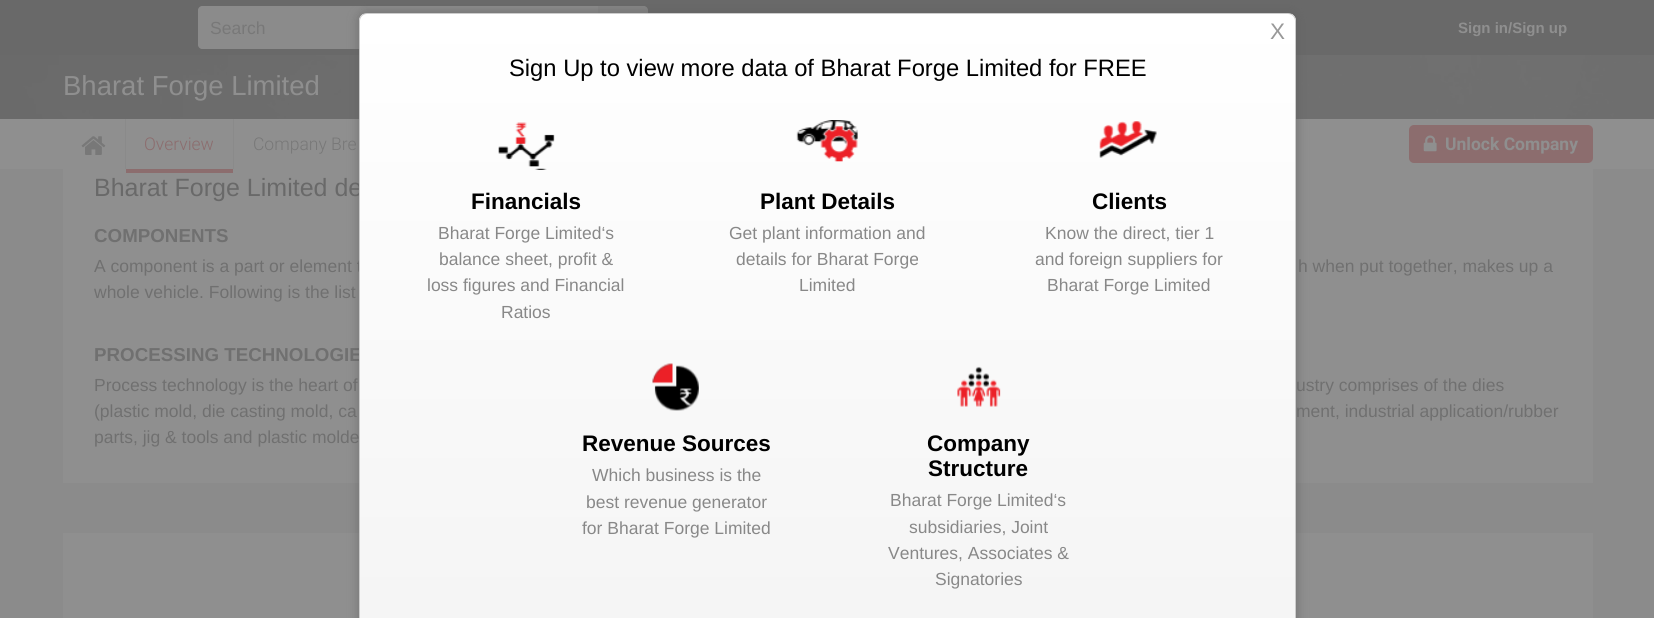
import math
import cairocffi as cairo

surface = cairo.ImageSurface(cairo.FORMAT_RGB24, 1654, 618)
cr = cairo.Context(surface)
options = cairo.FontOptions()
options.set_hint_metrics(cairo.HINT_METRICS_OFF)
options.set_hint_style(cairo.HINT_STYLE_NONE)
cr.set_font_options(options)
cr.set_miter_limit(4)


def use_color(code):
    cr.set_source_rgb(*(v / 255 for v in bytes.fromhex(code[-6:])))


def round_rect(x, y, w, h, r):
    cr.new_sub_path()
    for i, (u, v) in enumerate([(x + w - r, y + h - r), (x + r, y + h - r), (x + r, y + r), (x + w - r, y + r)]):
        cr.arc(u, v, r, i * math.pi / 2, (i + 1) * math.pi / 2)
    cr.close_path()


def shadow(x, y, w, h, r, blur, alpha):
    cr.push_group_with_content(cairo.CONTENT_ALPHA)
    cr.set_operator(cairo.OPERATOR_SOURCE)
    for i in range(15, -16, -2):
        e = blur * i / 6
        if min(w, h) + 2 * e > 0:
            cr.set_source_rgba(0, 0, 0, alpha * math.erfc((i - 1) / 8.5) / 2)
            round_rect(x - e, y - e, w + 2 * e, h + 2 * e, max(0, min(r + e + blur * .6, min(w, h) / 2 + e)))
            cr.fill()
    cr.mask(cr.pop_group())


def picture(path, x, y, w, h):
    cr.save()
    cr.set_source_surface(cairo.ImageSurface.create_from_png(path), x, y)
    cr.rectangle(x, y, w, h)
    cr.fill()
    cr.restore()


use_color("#8b8b8b")
cr.paint()
use_color("#696969")
cr.rectangle(0, 0, 1654, 55)
cr.fill()
use_color("#8b8b8b")
cr.new_path()
cr.move_to(202, 6)
cr.line_to(606, 6)
cr.line_to(606, 49)
cr.line_to(202, 49)
cr.curve_to(200, 49, 198, 47, 198, 45)
cr.line_to(198, 10)
cr.curve_to(198, 8, 200, 6, 202, 6)
cr.close_path()
cr.fill()
cr.select_font_face("Liberation Sans")
cr.set_font_size(17.5)
use_color("#787878")
cr.move_to(210, 34)
cr.show_text("Search")
use_color("#868686")
cr.new_path()
cr.move_to(598, 6)
cr.line_to(644, 6)
cr.curve_to(646, 6, 648, 8, 648, 10)
cr.line_to(648, 45)
cr.curve_to(648, 47, 646, 49, 644, 49)
cr.line_to(598, 49)
cr.close_path()
cr.fill()
cr.select_font_face("Liberation Sans", cairo.FONT_SLANT_NORMAL, cairo.FONT_WEIGHT_BOLD)
cr.set_font_size(15)
use_color("#8f8f8f")
cr.move_to(1458, 33)
cr.show_text("Sign in/Sign up")
picture("img1.png", 0, 55, 1654, 64)
cr.select_font_face("Liberation Sans")
cr.set_font_size(27.5)
cr.move_to(63, 95)
cr.show_text("Bharat Forge Limited")
cr.rectangle(0, 119, 1654, 50)
cr.fill()
use_color("#8a8a8a")
cr.rectangle(125, 119, 1, 50)
cr.fill()
picture("img2.png", 81, 136, 25, 19)
cr.rectangle(233, 119, 1, 50)
cr.fill()
cr.select_font_face("Roboto Light")
cr.set_font_size(17.5)
use_color("#8c6d6e")
cr.move_to(144, 150)
cr.show_text("Overview")
use_color("#8f8f8f")
cr.rectangle(63, 169, 1530, 314)
cr.fill()
use_color("#8c6d6e")
cr.rectangle(126, 169, 107, 4)
cr.fill()
use_color("#787878")
cr.move_to(253, 150)
cr.show_text("Company Bre")
use_color("#8c6d6e")
round_rect(1409, 125, 184, 38, 5)
cr.fill()
picture("img3.png", 1423, 135, 14, 17)
cr.select_font_face("Roboto", cairo.FONT_SLANT_NORMAL, cairo.FONT_WEIGHT_BOLD)
use_color("#8f8f8f")
cr.move_to(1445, 150)
cr.show_text("Unlock Company")
cr.select_font_face("Liberation Sans")
cr.set_font_size(25)
use_color("#696969")
cr.move_to(94, 196)
cr.show_text("Bharat Forge Limited de")
cr.select_font_face("Liberation Sans", cairo.FONT_SLANT_NORMAL, cairo.FONT_WEIGHT_BOLD)
cr.set_font_size(18.75)
use_color("#707070")
cr.move_to(94, 242)
cr.show_text("COMPONENTS")
cr.select_font_face("Liberation Sans")
cr.set_font_size(17.5)
cr.move_to(94, 272)
cr.show_text("A component is a part or element t")
cr.move_to(1298, 272)
cr.show_text("h when put together, makes up a")
cr.move_to(94, 298)
cr.show_text("whole vehicle. Following is the list")
cr.select_font_face("Liberation Sans", cairo.FONT_SLANT_NORMAL, cairo.FONT_WEIGHT_BOLD)
cr.set_font_size(18.75)
cr.move_to(94, 361)
cr.show_text("PROCESSING TECHNOLOGIE")
cr.select_font_face("Liberation Sans")
cr.set_font_size(17.5)
cr.move_to(94, 391)
cr.show_text("Process technology is the heart of")
cr.move_to(1296, 391)
cr.show_text("ustry comprises of the dies")
cr.move_to(94, 417)
cr.show_text("(plastic mold, die casting mold, ca")
cr.move_to(1296, 417)
cr.show_text("ment, industrial application/rubber")
cr.move_to(94, 443)
cr.show_text("parts, jig & tools and plastic molde")
use_color("#8f8f8f")
cr.rectangle(63, 533, 1530, 85)
cr.fill()
use_color("#5c5c5c")
shadow(358, 11, 940, 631, 9, 5, 0.5)
cr.save()
round_rect(359, 13, 937, 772, 8)
cr.clip()
gradient = cairo.LinearGradient(828, 14, 828, 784)
gradient.add_color_stop_rgba(0, 1, 1, 1, 1)
gradient.add_color_stop_rgba(1, 0.949, 0.949, 0.949, 1)
cr.set_source(gradient)
cr.rectangle(359, 14, 937, 604)
cr.fill()
cr.restore()
round_rect(359.5, 13.5, 936, 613, 7.5)
use_color("#cccccc")
cr.set_line_width(1)
cr.stroke()
cr.set_font_size(22.5)
use_color("#999999")
cr.move_to(1270, 39)
cr.show_text("X")
cr.set_font_size(23.75)
use_color("#000000")
cr.move_to(509, 76)
cr.show_text("Sign Up to view more data of Bharat Forge Limited for FREE")
picture("img4.png", 498, 122, 57, 48)
cr.select_font_face("Liberation Sans", cairo.FONT_SLANT_NORMAL, cairo.FONT_WEIGHT_BOLD)
cr.set_font_size(22.5)
cr.move_to(471, 209)
cr.show_text("Financials")
cr.select_font_face("Liberation Sans")
cr.set_font_size(17.5)
use_color("#888888")
cr.move_to(438, 239)
cr.show_text("Bharat Forge Limited‘s")
cr.move_to(439, 265)
cr.show_text("balance sheet, profit &")
cr.move_to(427, 291)
cr.show_text("loss figures and Financial")
cr.move_to(501, 318)
cr.show_text("Ratios")
picture("img5.png", 796, 120, 62, 42)
cr.select_font_face("Liberation Sans", cairo.FONT_SLANT_NORMAL, cairo.FONT_WEIGHT_BOLD)
cr.set_font_size(22.5)
use_color("#000000")
cr.move_to(760, 209)
cr.show_text("Plant Details")
cr.select_font_face("Liberation Sans")
cr.set_font_size(17.5)
use_color("#888888")
cr.move_to(729, 239)
cr.show_text("Get plant information and")
cr.move_to(736, 265)
cr.show_text("details for Bharat Forge")
cr.move_to(799, 291)
cr.show_text("Limited")
picture("img6.png", 1099, 121, 58, 37)
cr.select_font_face("Liberation Sans", cairo.FONT_SLANT_NORMAL, cairo.FONT_WEIGHT_BOLD)
cr.set_font_size(22.5)
use_color("#000000")
cr.move_to(1092, 209)
cr.show_text("Clients")
cr.select_font_face("Liberation Sans")
cr.set_font_size(17.5)
use_color("#888888")
cr.move_to(1045, 239)
cr.show_text("Know the direct, tier 1")
cr.move_to(1035, 265)
cr.show_text("and foreign suppliers for")
cr.move_to(1047, 291)
cr.show_text("Bharat Forge Limited")
picture("img7.png", 652, 363, 47, 48)
cr.select_font_face("Liberation Sans", cairo.FONT_SLANT_NORMAL, cairo.FONT_WEIGHT_BOLD)
cr.set_font_size(22.5)
use_color("#000000")
cr.move_to(582, 451)
cr.show_text("Revenue Sources")
cr.select_font_face("Liberation Sans")
cr.set_font_size(17.5)
use_color("#888888")
cr.move_to(592, 481)
cr.show_text("Which business is the")
cr.move_to(586, 508)
cr.show_text("best revenue generator")
cr.move_to(582, 534)
cr.show_text("for Bharat Forge Limited")
picture("img8.png", 957, 366, 44, 41)
cr.select_font_face("Liberation Sans", cairo.FONT_SLANT_NORMAL, cairo.FONT_WEIGHT_BOLD)
cr.set_font_size(22.5)
use_color("#000000")
cr.move_to(927, 451)
cr.show_text("Company")
cr.move_to(928, 476)
cr.show_text("Structure")
cr.select_font_face("Liberation Sans")
cr.set_font_size(17.5)
use_color("#888888")
cr.move_to(890, 506)
cr.show_text("Bharat Forge Limited‘s")
cr.move_to(909, 533)
cr.show_text("subsidiaries, Joint")
cr.move_to(888, 559)
cr.show_text("Ventures, Associates &")
cr.move_to(935, 585)
cr.show_text("Signatories")
surface.write_to_png("result.png")
